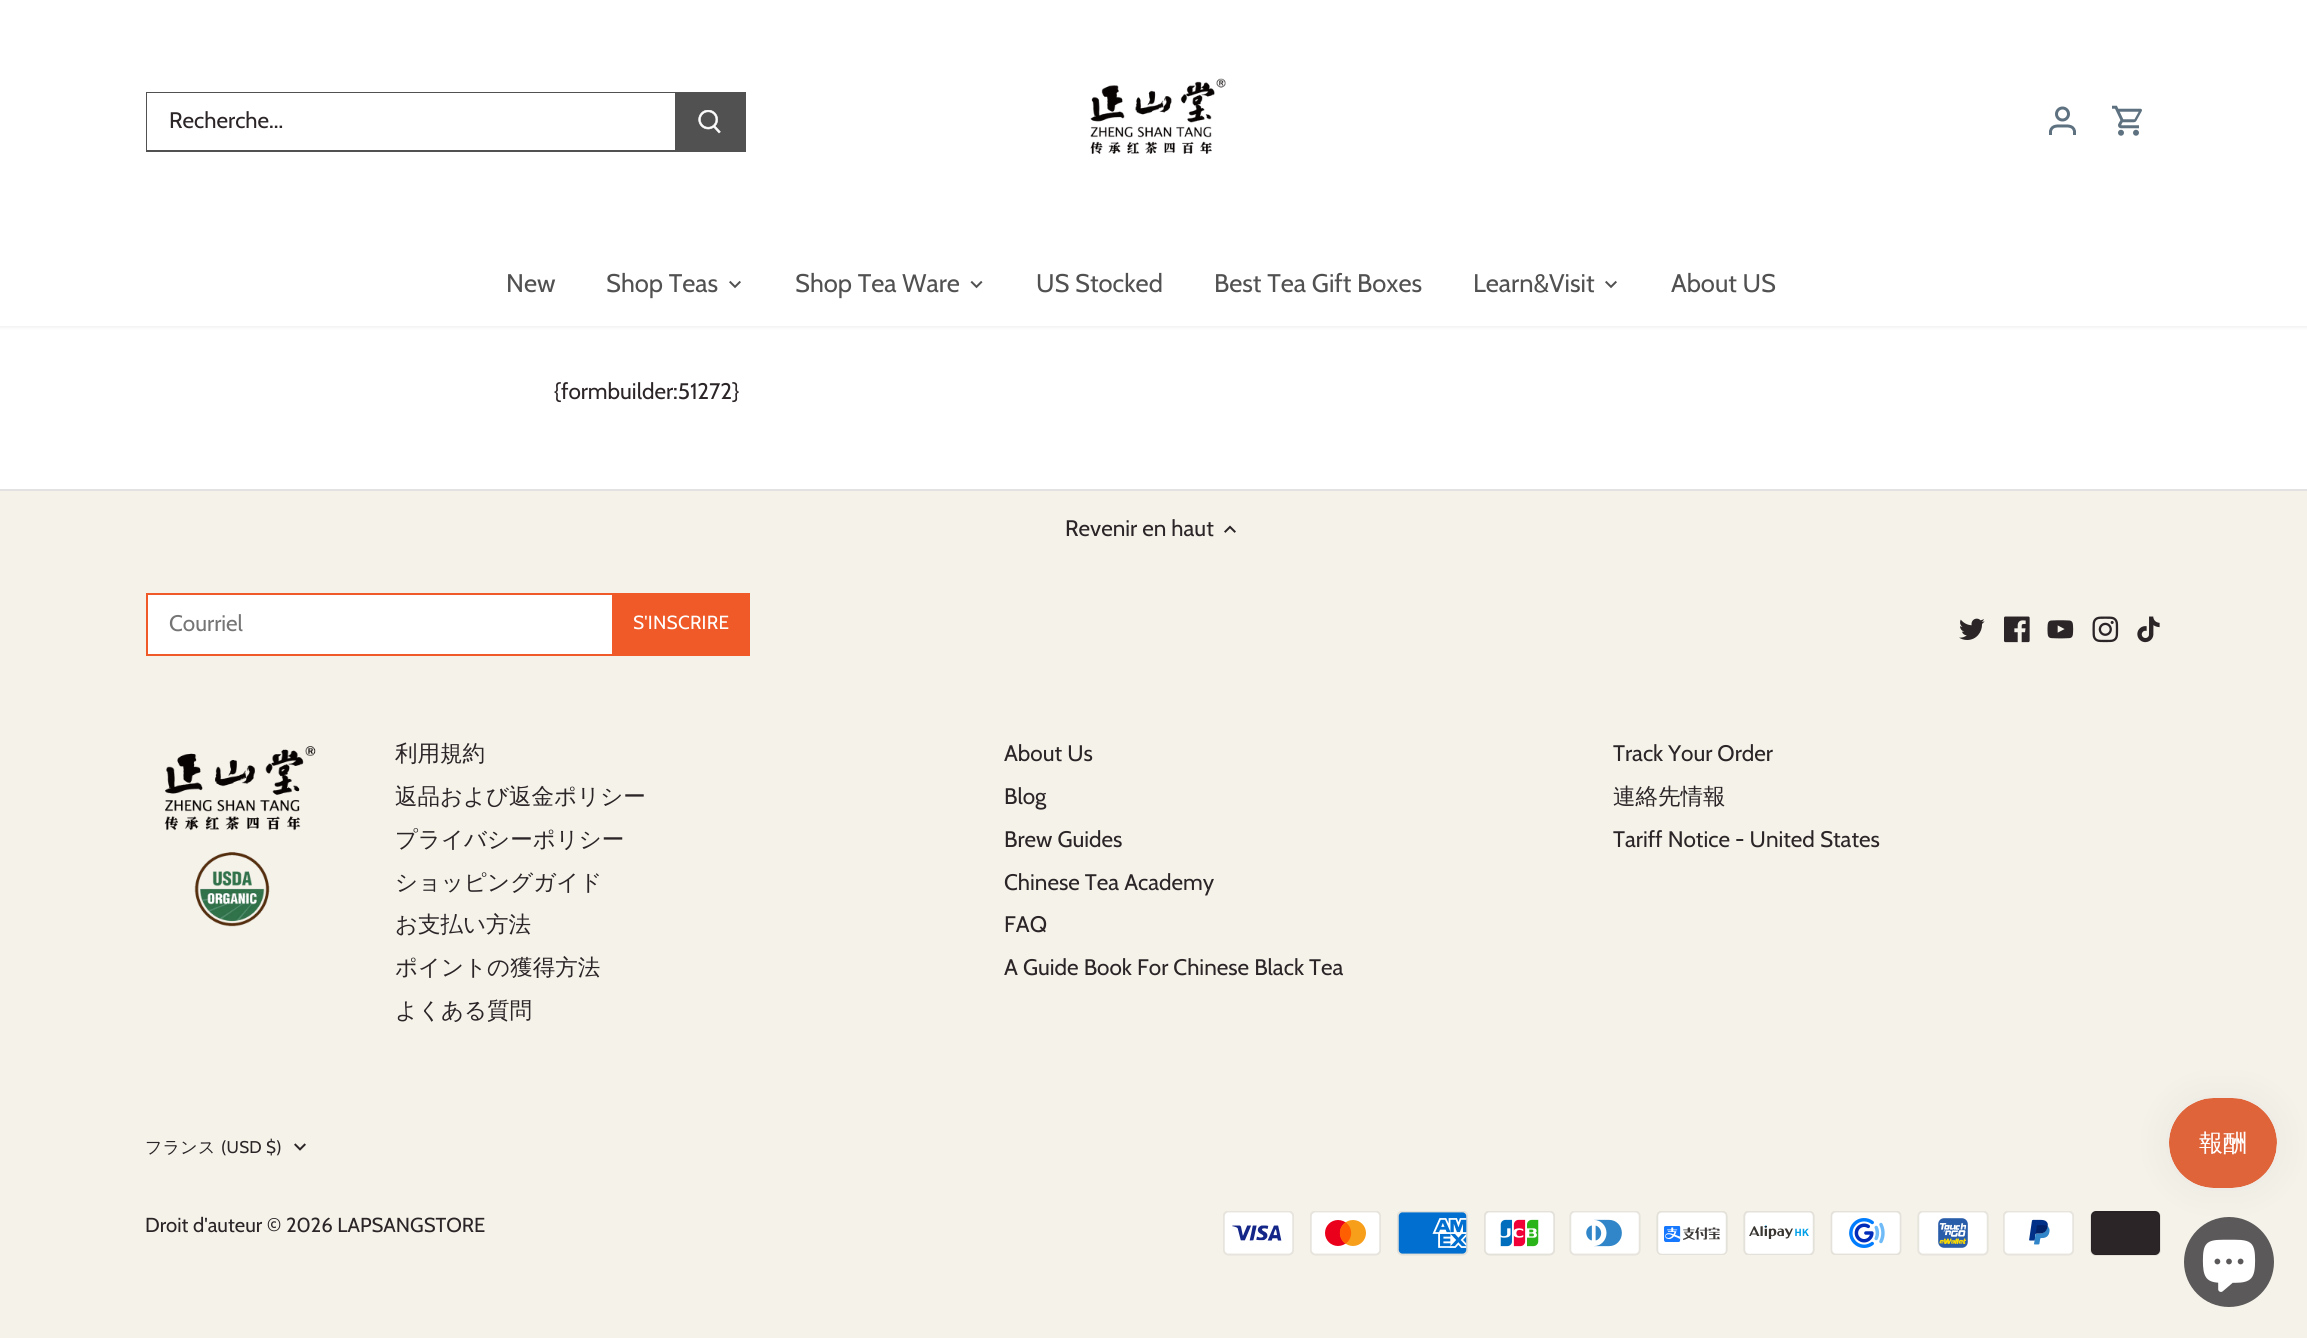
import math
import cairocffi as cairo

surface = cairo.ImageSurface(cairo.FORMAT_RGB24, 2307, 1338)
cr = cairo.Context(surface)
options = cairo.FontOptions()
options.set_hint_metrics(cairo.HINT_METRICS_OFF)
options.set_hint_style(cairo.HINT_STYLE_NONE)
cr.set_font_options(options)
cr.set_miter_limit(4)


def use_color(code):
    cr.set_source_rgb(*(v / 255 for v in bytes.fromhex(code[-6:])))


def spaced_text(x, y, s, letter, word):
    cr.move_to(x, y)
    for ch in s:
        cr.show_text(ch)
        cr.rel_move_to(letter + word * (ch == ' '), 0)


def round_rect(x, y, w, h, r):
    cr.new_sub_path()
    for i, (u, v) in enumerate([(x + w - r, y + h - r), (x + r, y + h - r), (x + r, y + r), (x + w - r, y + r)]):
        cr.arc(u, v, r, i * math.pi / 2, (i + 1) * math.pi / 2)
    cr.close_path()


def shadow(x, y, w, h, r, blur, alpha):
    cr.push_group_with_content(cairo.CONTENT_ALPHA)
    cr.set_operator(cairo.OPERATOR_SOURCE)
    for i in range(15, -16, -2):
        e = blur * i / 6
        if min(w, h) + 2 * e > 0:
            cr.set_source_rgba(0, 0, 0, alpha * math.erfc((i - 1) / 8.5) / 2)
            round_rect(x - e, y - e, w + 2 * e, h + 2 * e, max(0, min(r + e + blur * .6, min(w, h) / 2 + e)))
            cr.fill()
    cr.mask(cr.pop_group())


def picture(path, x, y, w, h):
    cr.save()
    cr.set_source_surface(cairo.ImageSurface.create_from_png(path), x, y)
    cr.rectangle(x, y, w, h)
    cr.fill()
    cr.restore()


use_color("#f4f2e9")
cr.paint()
use_color("#ffffff")
cr.rectangle(0, 326, 2307, 163)
cr.fill()
use_color("#000000")
shadow(-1, -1, 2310, 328, 0, 2, 0.08)
use_color("#ffffff")
cr.rectangle(0, 0, 2307, 326)
cr.fill()
cr.rectangle(147, 93, 598, 58)
use_color("#515151")
cr.stroke()
use_color("#ffffff")
cr.rectangle(147, 93, 528, 57)
cr.fill()
cr.select_font_face("Cabin")
cr.set_font_size(22.5)
use_color("#2c2528")
cr.move_to(169, 128)
cr.show_text("Recherche...")
use_color("#515151")
cr.rectangle(675, 94, 69, 56)
cr.fill()
picture("img1.png", 698, 110, 23, 24)
picture("img2.png", 1090, 78, 136, 76)
cr.arc(2062.5, 114, 6, 0, 2 * math.pi)
use_color("#5d7180")
cr.set_line_width(3)
cr.stroke()
cr.new_path()
cr.move_to(2074.5, 135)
cr.line_to(2074.5, 131)
cr.curve_to(2073, 125, 2067, 126, 2062.5, 126)
cr.curve_to(2058, 126, 2052, 125, 2050.5, 131)
cr.line_to(2050.5, 135)
cr.stroke()
picture("img3.png", 2112, 105, 30, 31)
cr.set_font_size(25.5)
use_color("#515151")
cr.move_to(506, 292)
cr.show_text("New")
cr.move_to(606, 292)
cr.show_text("Shop Teas")
picture("img4.png", 729, 280, 12, 9)
cr.move_to(795, 292)
cr.show_text("Shop Tea Ware")
picture("img5.png", 970, 280, 13, 9)
cr.move_to(1036, 292)
cr.show_text("US Stocked")
cr.move_to(1214, 292)
cr.show_text("Best Tea Gift Boxes")
cr.move_to(1473, 292)
cr.show_text("Learn&Visit")
picture("img4.png", 1605, 280, 12, 9)
cr.move_to(1671, 292)
cr.show_text("About US")
cr.set_font_size(22.5)
use_color("#2c2528")
cr.move_to(554, 399)
cr.show_text("{formbuilder:51272}")
use_color("#e2e2e2")
cr.rectangle(0, 489, 2307, 2)
cr.fill()
use_color("#2c2528")
cr.move_to(1065, 536)
cr.show_text("Revenir en haut")
picture("img6.png", 1224, 525, 12, 8)
use_color("#ffffff")
cr.rectangle(148, 595, 464, 59)
cr.fill()
cr.rectangle(147, 594, 601, 61)
use_color("#f05a28")
cr.set_line_width(2)
cr.stroke()
use_color("#757575")
cr.move_to(169, 631)
cr.show_text("Courriel")
use_color("#f05a28")
cr.rectangle(612, 593, 138, 63)
cr.fill()
cr.set_font_size(19)
use_color("#ffffff")
spaced_text(633, 629, "S'INSCRIRE", 0.25, 0)
picture("img7.png", 1959, 618, 26, 22)
picture("img8.png", 2004, 616, 26, 27)
picture("img9.png", 2047, 620, 27, 19)
picture("img10.png", 2092, 616, 27, 27)
picture("img11.png", 2137, 616, 23, 27)
picture("img12.png", 164, 746, 152, 181)
cr.select_font_face("WenQuanYi Zen Hei Medium")
cr.set_font_size(22.5)
use_color("#2c2528")
cr.move_to(395, 761)
cr.show_text("利用規約")
cr.move_to(395, 804)
cr.show_text("返品および返金ポリシー")
cr.move_to(395, 847)
cr.show_text("プライバシーポリシー")
cr.move_to(395, 890)
cr.show_text("ショッピングガイド")
cr.move_to(395, 932)
cr.show_text("お支払い方法")
cr.move_to(395, 975)
cr.show_text("ポイントの獲得方法")
cr.move_to(395, 1018)
cr.show_text("よくある質問")
cr.select_font_face("Cabin")
cr.move_to(1004, 761)
cr.show_text("About Us")
cr.move_to(1004, 804)
cr.show_text("Blog")
cr.move_to(1004, 847)
cr.show_text("Brew Guides")
cr.move_to(1004, 890)
cr.show_text("Chinese Tea Academy")
cr.move_to(1004, 932)
cr.show_text("FAQ")
cr.move_to(1004, 975)
cr.show_text("A Guide Book For Chinese Black Tea")
cr.move_to(1613, 761)
cr.show_text("Track Your Order")
cr.select_font_face("WenQuanYi Zen Hei Medium")
cr.move_to(1613, 804)
cr.show_text("連絡先情報")
cr.select_font_face("Cabin")
cr.move_to(1613, 847)
cr.show_text("Tariff Notice - United States")
cr.select_font_face("WenQuanYi Zen Hei Medium")
cr.set_font_size(17)
spaced_text(145, 1153, "フランス", 0.25, 0)
cr.select_font_face("Cabin")
spaced_text(221, 1153, "(USD $)", 0.25, 0)
picture("img13.png", 294, 1143, 12, 8)
cr.set_font_size(20.25)
cr.move_to(145, 1232)
cr.show_text("Droit d'auteur © 2026 LAPSANGSTORE")
picture("img14.png", 1223, 1211, 71, 45)
picture("img15.png", 1310, 1211, 71, 45)
picture("img16.png", 1397, 1211, 71, 45)
picture("img17.png", 1484, 1211, 71, 45)
picture("img18.png", 1569, 1211, 72, 45)
picture("img19.png", 1656, 1211, 72, 44)
picture("img20.png", 1743, 1211, 72, 44)
picture("img21.png", 1830, 1211, 72, 44)
picture("img22.png", 1917, 1211, 72, 45)
picture("img23.png", 2003, 1211, 71, 45)
picture("img24.png", 2090, 1211, 71, 45)
use_color("#5b5959")
cr.arc(2229, 1262, 45, 0, 2 * math.pi)
cr.fill()
picture("img26.png", 2202, 1239, 54, 53)
use_color("#000000")
shadow(2169, 1098, 108, 90, 45, 19, 0.05)
picture("img25.png", 2169, 1098, 108, 90)
surface.write_to_png("result.png")
